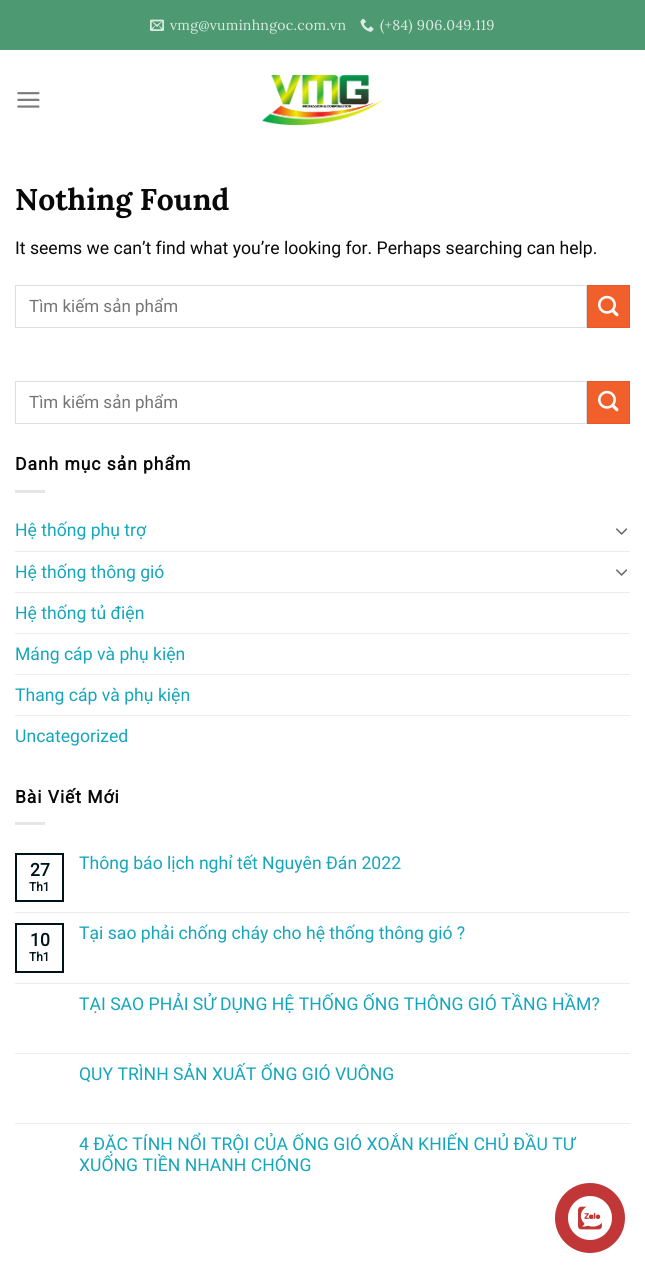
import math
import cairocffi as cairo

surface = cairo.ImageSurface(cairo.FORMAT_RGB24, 645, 1273)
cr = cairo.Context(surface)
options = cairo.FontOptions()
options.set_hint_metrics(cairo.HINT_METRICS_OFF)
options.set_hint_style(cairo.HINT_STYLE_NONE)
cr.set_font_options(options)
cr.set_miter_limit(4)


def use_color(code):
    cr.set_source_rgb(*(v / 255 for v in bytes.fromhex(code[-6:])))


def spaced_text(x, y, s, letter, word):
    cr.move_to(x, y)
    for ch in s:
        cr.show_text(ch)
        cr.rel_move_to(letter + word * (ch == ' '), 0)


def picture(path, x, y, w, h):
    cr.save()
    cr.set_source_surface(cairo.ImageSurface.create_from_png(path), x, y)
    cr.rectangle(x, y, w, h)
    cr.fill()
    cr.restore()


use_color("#ffffff")
cr.paint()
use_color("#4d9971")
cr.rectangle(0, 0, 645, 50)
cr.fill()
picture("img1.png", 150, 19, 14, 12)
cr.select_font_face("Lora")
cr.set_font_size(14.1)
use_color("#dbebe3")
spaced_text(170, 30, "vmg@vuminhngoc.com.vn", 0.25, 0)
picture("img2.png", 360, 18, 14, 14)
spaced_text(380, 30, "(+84) 906.049.119", 0.25, 0)
picture("img3.png", 17, 92, 23, 16)
picture("img4.png", 262, 75, 121, 50)
cr.select_font_face("Lora", cairo.FONT_SLANT_NORMAL, cairo.FONT_WEIGHT_BOLD)
cr.set_font_size(30)
use_color("#0a0909")
cr.move_to(15, 210)
cr.show_text("Nothing Found")
cr.select_font_face("Roboto")
cr.set_font_size(17.6)
cr.move_to(15, 254)
cr.show_text("It seems we can’t find what you’re looking for. Perhaps searching can help.")
cr.rectangle(15.5, 285.5, 571, 42)
use_color("#dddddd")
cr.set_line_width(1)
cr.stroke()
cr.set_font_size(17)
use_color("#757575")
cr.move_to(29, 312)
cr.show_text("Tìm kiếm sản phẩm")
use_color("#f15f2a")
cr.rectangle(587.5, 285.5, 42, 42)
cr.fill_preserve()
use_color("#e55a28")
cr.stroke()
picture("img5.png", 598, 295, 21, 22)
cr.rectangle(15.5, 381.5, 571, 42)
use_color("#dddddd")
cr.stroke()
use_color("#757575")
cr.move_to(29, 408)
cr.show_text("Tìm kiếm sản phẩm")
use_color("#f15f2a")
cr.rectangle(587.5, 381.5, 42, 42)
cr.fill_preserve()
use_color("#e55a28")
cr.stroke()
picture("img5.png", 598, 390, 21, 22)
cr.select_font_face("Roboto", cairo.FONT_SLANT_NORMAL, cairo.FONT_WEIGHT_BOLD)
cr.set_font_size(17.6)
use_color("#0a0909")
spaced_text(15, 470, "Danh mục sản phẩm", 0.9, 0)
use_color("#e6e6e6")
cr.rectangle(15, 490, 30, 3)
cr.fill()
cr.select_font_face("Roboto")
use_color("#16a6bc")
cr.move_to(15, 536)
cr.show_text("Hệ thống phụ trợ")
picture("img6.png", 616, 528, 12, 7)
use_color("#ececec")
cr.rectangle(15, 551, 615, 1)
cr.fill()
use_color("#16a6bc")
cr.move_to(15, 578)
cr.show_text("Hệ thống thông gió")
picture("img6.png", 616, 569, 12, 7)
use_color("#ececec")
cr.rectangle(15, 592, 615, 1)
cr.fill()
use_color("#16a6bc")
cr.move_to(15, 619)
cr.show_text("Hệ thống tủ điện")
use_color("#ececec")
cr.rectangle(15, 633, 615, 1)
cr.fill()
use_color("#16a6bc")
cr.move_to(15, 660)
cr.show_text("Máng cáp và phụ kiện")
use_color("#ececec")
cr.rectangle(15, 674, 615, 1)
cr.fill()
use_color("#16a6bc")
cr.move_to(15, 701)
cr.show_text("Thang cáp và phụ kiện")
use_color("#ececec")
cr.rectangle(15, 715, 615, 1)
cr.fill()
use_color("#16a6bc")
cr.move_to(15, 742)
cr.show_text("Uncategorized")
cr.select_font_face("Roboto", cairo.FONT_SLANT_NORMAL, cairo.FONT_WEIGHT_BOLD)
use_color("#0a0909")
spaced_text(15, 803, "Bài Viết Mới", 0.9, 0)
use_color("#e6e6e6")
cr.rectangle(15, 822, 30, 3)
cr.fill()
cr.rectangle(16, 854, 47, 47)
use_color("#001219")
cr.set_line_width(2)
cr.stroke()
cr.move_to(30, 876)
cr.show_text("27")
cr.set_font_size(12)
cr.move_to(29, 891)
cr.show_text("Th1")
cr.select_font_face("Roboto")
cr.set_font_size(17.6)
use_color("#16a6bc")
cr.move_to(79, 869)
cr.show_text("Thông báo lịch nghỉ tết Nguyên Đán 2022")
use_color("#ececec")
cr.rectangle(15, 912, 615, 1)
cr.fill()
cr.rectangle(16, 924, 47, 48)
use_color("#001219")
cr.stroke()
cr.select_font_face("Roboto", cairo.FONT_SLANT_NORMAL, cairo.FONT_WEIGHT_BOLD)
cr.move_to(30, 946)
cr.show_text("10")
cr.set_font_size(12)
cr.move_to(29, 961)
cr.show_text("Th1")
cr.select_font_face("Roboto")
cr.set_font_size(17.6)
use_color("#16a6bc")
cr.move_to(79, 939)
cr.show_text("Tại sao phải chống cháy cho hệ thống thông gió ?")
use_color("#ececec")
cr.rectangle(15, 983, 615, 1)
cr.fill()
use_color("#16a6bc")
cr.move_to(79, 1010)
cr.show_text("TẠI SAO PHẢI SỬ DỤNG HỆ THỐNG ỐNG THÔNG GIÓ TẦNG HẦM?")
use_color("#ececec")
cr.rectangle(15, 1053, 615, 1)
cr.fill()
use_color("#16a6bc")
cr.move_to(79, 1080)
cr.show_text("QUY TRÌNH SẢN XUẤT ỐNG GIÓ VUÔNG")
use_color("#ececec")
cr.rectangle(15, 1123, 615, 1)
cr.fill()
use_color("#16a6bc")
cr.move_to(79, 1150)
cr.show_text("4 ĐẶC TÍNH NỔI TRỘI CỦA ỐNG GIÓ XOẮN KHIẾN CHỦ ĐẦU TƯ")
cr.move_to(79, 1171)
cr.show_text("XUỐNG TIỀN NHANH CHÓNG")
use_color("#c13636")
cr.new_path()
cr.arc(590, 1218, 35, 0, 2 * math.pi)
cr.fill()
use_color("#ffffff")
cr.arc(590, 1218, 22, 0, 2 * math.pi)
cr.fill()
picture("img7.png", 578, 1206, 24, 24)
surface.write_to_png("result.png")
